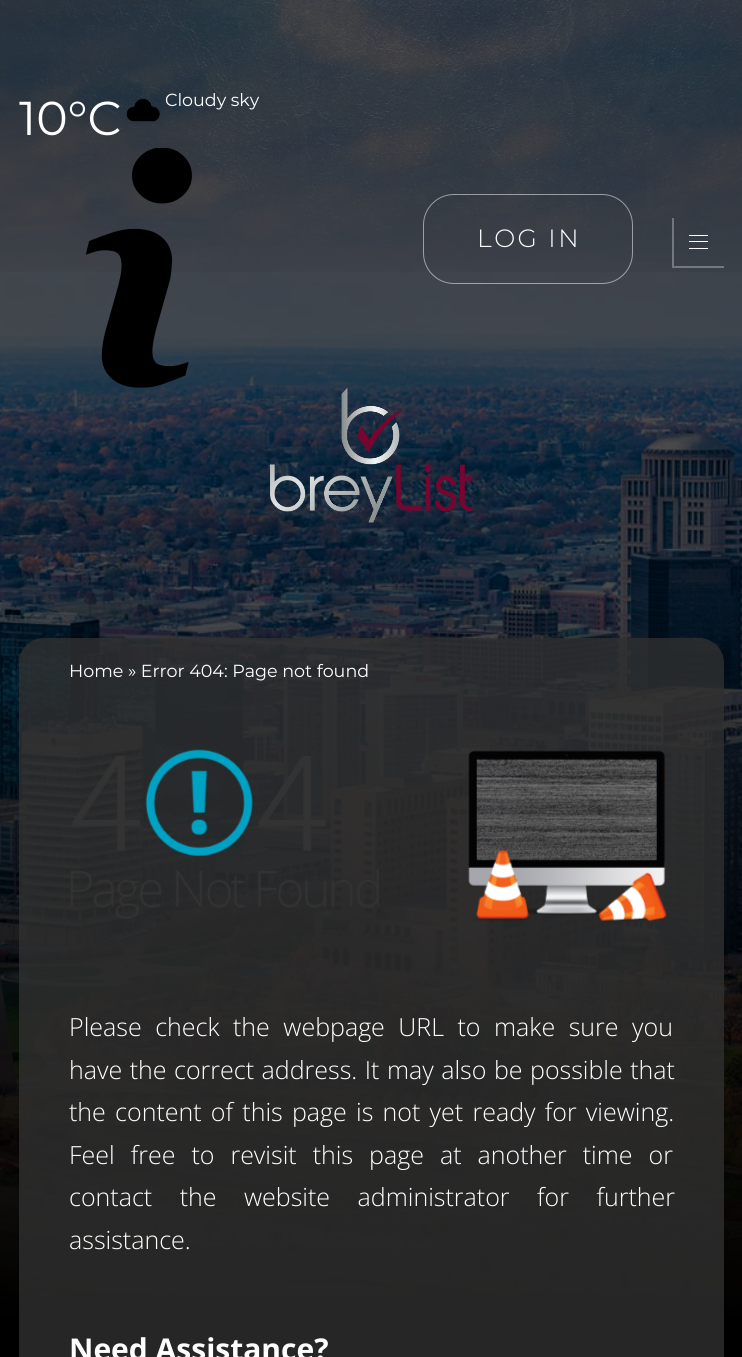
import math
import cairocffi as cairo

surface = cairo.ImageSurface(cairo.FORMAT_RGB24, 742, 1357)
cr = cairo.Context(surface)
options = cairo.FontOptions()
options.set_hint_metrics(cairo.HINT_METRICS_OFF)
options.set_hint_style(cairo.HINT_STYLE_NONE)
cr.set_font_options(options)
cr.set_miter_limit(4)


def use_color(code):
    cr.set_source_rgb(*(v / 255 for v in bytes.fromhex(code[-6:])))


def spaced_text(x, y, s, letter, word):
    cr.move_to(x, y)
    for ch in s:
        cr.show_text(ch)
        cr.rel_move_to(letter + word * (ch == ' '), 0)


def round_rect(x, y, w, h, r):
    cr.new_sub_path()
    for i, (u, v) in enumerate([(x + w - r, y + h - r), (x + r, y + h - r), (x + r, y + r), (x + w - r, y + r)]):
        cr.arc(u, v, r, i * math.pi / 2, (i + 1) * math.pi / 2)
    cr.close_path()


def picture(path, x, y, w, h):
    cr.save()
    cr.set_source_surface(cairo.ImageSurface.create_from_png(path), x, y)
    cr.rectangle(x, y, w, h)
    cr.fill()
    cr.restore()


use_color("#000000")
cr.paint()
picture("img4.png", 0, 0, 742, 1318)
picture("img5.png", 0, 0, 742, 272)
cr.select_font_face("Montserrat")
cr.set_font_size(47.5)
use_color("#ffffff")
cr.move_to(19, 135)
cr.show_text("10°C")
picture("img1.png", 126, 99, 34, 23)
cr.set_font_size(17.5)
cr.move_to(165, 106)
cr.show_text("Cloudy sky")
picture("img2.png", 85, 148, 107, 240)
round_rect(423.5, 194.5, 209, 89, 30.5)
cr.set_source_rgba(1, 1, 1, 0.5)
cr.set_line_width(1)
cr.stroke()
cr.select_font_face("Montserrat Light")
cr.set_font_size(25)
use_color("#ffffff")
spaced_text(477, 247, "LOG IN", 2.5, 0)
use_color("#75797f")
cr.new_path()
cr.move_to(724, 268)
cr.line_to(672, 268)
cr.line_to(674, 266)
cr.line_to(724, 266)
cr.close_path()
cr.fill()
cr.set_source_rgba(1, 1, 1, 0.3)
cr.new_path()
cr.move_to(672, 268)
cr.line_to(672, 218)
cr.line_to(674, 218)
cr.line_to(674, 266)
cr.close_path()
cr.fill()
use_color("#ffffff")
cr.rectangle(689, 235, 19, 1)
cr.fill()
cr.rectangle(689, 241, 19, 1)
cr.fill()
cr.rectangle(689, 248, 19, 1)
cr.fill()
picture("img3.png", 270, 387, 203, 136)
gradient = cairo.LinearGradient(371, 586, 371, 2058)
gradient.add_color_stop_rgba(0, 0, 0, 0, 0)
gradient.add_color_stop_rgba(0.5, 0, 0, 0, 1)
gradient.add_color_stop_rgba(1, 0, 0, 0, 1)
cr.set_source(gradient)
cr.rectangle(0, 611, 742, 707)
cr.fill()
cr.set_source_rgba(0.188, 0.188, 0.188, 0.8)
round_rect(19, 638, 705, 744, 25)
cr.fill()
cr.select_font_face("Montserrat")
cr.set_font_size(17.5)
use_color("#ffffff")
cr.move_to(69, 677)
cr.show_text("Home » Error 404: Page not found")
picture("img6.png", 70, 749, 309, 170)
picture("img7.png", 468, 750, 199, 172)
cr.select_font_face("Open Sans Light")
cr.set_font_size(25)
spaced_text(69, 1036, "Please check the webpage URL to make sure you", 0, 7)
spaced_text(69, 1079, "have the correct address. It may also be possible that", 0, 1)
spaced_text(69, 1121, "the content of this page is not yet ready for viewing.", 0, 2.75)
spaced_text(69, 1164, "Feel free to revisit this page at another time or", 0, 9.5)
spaced_text(69, 1206, "contact the website administrator for further", 0, 21)
cr.move_to(69, 1249)
cr.show_text("assistance.")
cr.select_font_face("Open Sans", cairo.FONT_SLANT_NORMAL, cairo.FONT_WEIGHT_BOLD)
cr.set_font_size(30)
cr.move_to(69, 1360)
cr.show_text("Need Assistance?")
surface.write_to_png("result.png")
